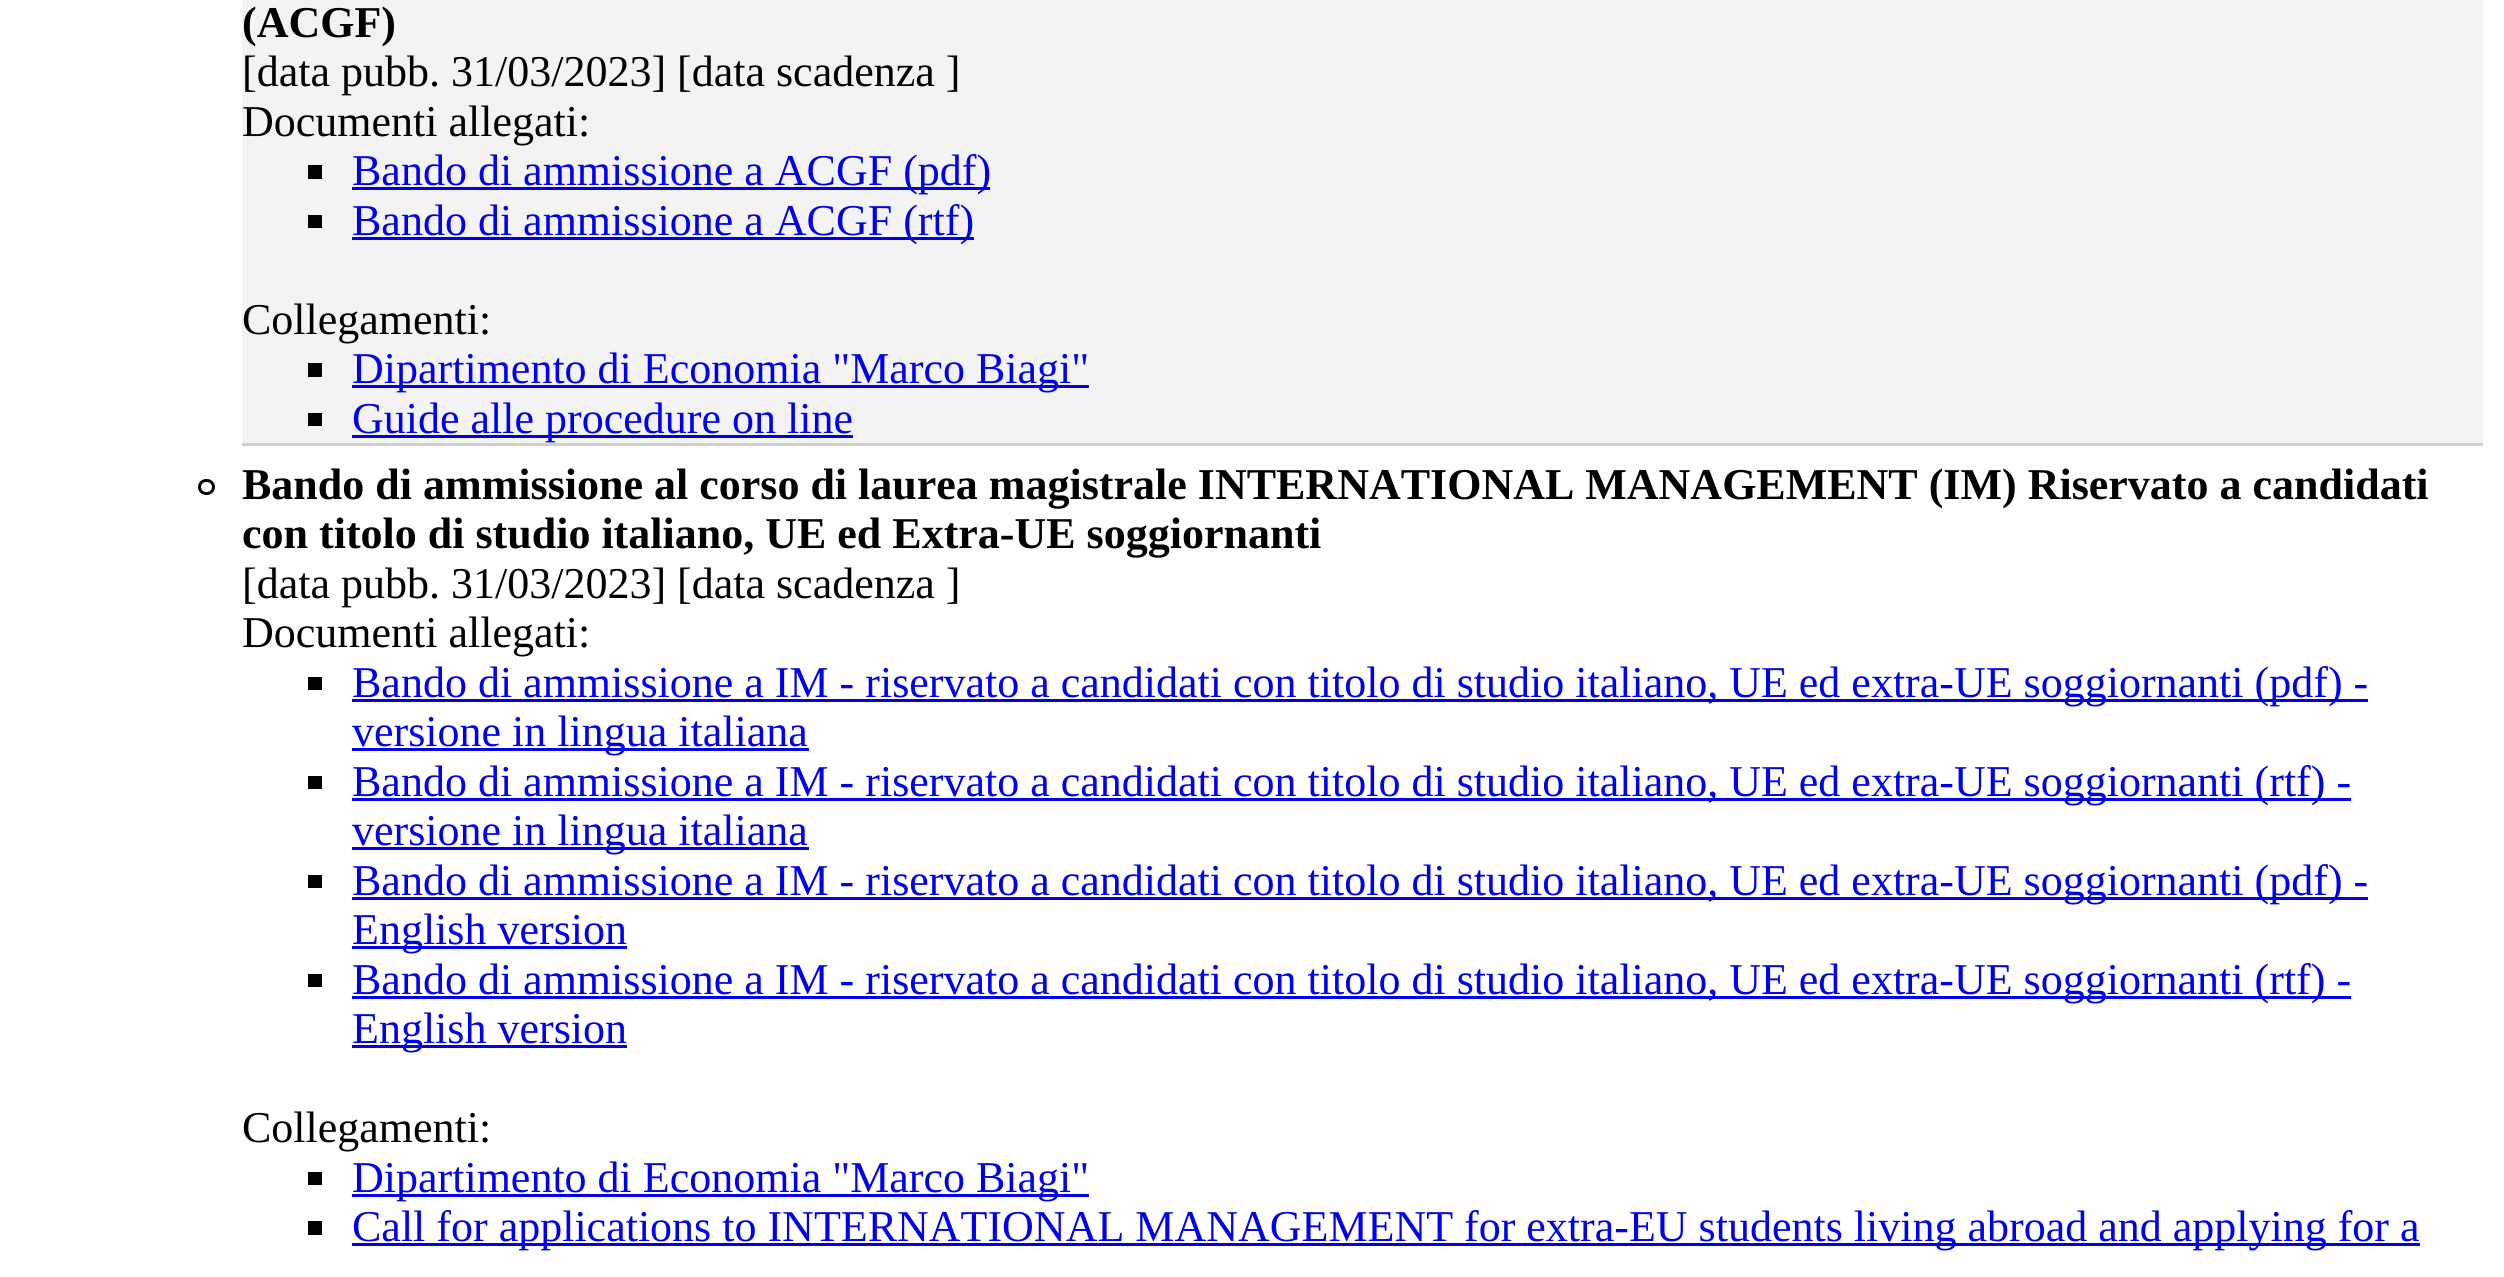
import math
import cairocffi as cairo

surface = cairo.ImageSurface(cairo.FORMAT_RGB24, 2504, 1277)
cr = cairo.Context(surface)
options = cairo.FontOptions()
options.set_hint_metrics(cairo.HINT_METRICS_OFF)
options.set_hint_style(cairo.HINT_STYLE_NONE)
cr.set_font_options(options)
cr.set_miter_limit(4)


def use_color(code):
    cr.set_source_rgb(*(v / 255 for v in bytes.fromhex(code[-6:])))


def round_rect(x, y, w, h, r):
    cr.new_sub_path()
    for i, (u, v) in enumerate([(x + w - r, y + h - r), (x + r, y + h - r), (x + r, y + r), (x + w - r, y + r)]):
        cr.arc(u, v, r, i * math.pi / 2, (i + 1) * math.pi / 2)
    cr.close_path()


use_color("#ffffff")
cr.paint()
use_color("#f3f3f3")
cr.rectangle(242, 0, 2241, 443)
cr.fill()
cr.select_font_face("Liberation Serif", cairo.FONT_SLANT_NORMAL, cairo.FONT_WEIGHT_BOLD)
cr.set_font_size(44)
use_color("#000000")
cr.move_to(242, 37)
cr.show_text("(ACGF)")
cr.select_font_face("Liberation Serif")
cr.move_to(242, 86)
cr.show_text("[data pubb. 31/03/2023] [data scadenza ]")
cr.move_to(242, 136)
cr.show_text("Documenti allegati:")
cr.rectangle(308, 165, 14, 14)
cr.fill()
use_color("#0000ee")
cr.rectangle(352, 187, 638, 3)
cr.fill()
cr.move_to(352, 185)
cr.show_text("Bando di ammissione a ACGF (pdf)")
use_color("#000000")
cr.rectangle(308, 215, 14, 13)
cr.fill()
use_color("#0000ee")
cr.rectangle(352, 237, 622, 3)
cr.fill()
cr.move_to(352, 235)
cr.show_text("Bando di ammissione a ACGF (rtf)")
use_color("#000000")
cr.move_to(242, 334)
cr.show_text("Collegamenti:")
cr.rectangle(308, 363, 14, 14)
cr.fill()
use_color("#0000ee")
cr.rectangle(352, 385, 737, 3)
cr.fill()
cr.move_to(352, 383)
cr.show_text("Dipartimento di Economia \"Marco Biagi\"")
use_color("#000000")
cr.rectangle(308, 413, 14, 13)
cr.fill()
use_color("#0000ee")
cr.rectangle(352, 435, 501, 3)
cr.fill()
cr.move_to(352, 433)
cr.show_text("Guide alle procedure on line")
use_color("#d0d0d0")
cr.rectangle(242, 443, 2241, 3)
cr.fill()
round_rect(199.5, 480.5, 14, 13, 6.5)
use_color("#000000")
cr.set_line_width(3)
cr.stroke()
cr.select_font_face("Liberation Serif", cairo.FONT_SLANT_NORMAL, cairo.FONT_WEIGHT_BOLD)
cr.move_to(242, 499)
cr.show_text("Bando di ammissione al corso di laurea magistrale INTERNATIONAL MANAGEMENT (IM) Riservato a candidati")
cr.move_to(242, 548)
cr.show_text("con titolo di studio italiano, UE ed Extra-UE soggiornanti")
cr.select_font_face("Liberation Serif")
cr.move_to(242, 598)
cr.show_text("[data pubb. 31/03/2023] [data scadenza ]")
cr.move_to(242, 647)
cr.show_text("Documenti allegati:")
cr.rectangle(308, 677, 14, 13)
cr.fill()
use_color("#0000ee")
cr.rectangle(352, 699, 2016, 3)
cr.fill()
cr.move_to(352, 697)
cr.show_text("Bando di ammissione a IM - riservato a candidati con titolo di studio italiano, UE ed extra-UE soggiornanti (pdf) -")
cr.rectangle(352, 748, 457, 3)
cr.fill()
cr.move_to(352, 746)
cr.show_text("versione in lingua italiana")
use_color("#000000")
cr.rectangle(308, 776, 14, 13)
cr.fill()
use_color("#0000ee")
cr.rectangle(352, 798, 1999, 3)
cr.fill()
cr.move_to(352, 796)
cr.show_text("Bando di ammissione a IM - riservato a candidati con titolo di studio italiano, UE ed extra-UE soggiornanti (rtf) -")
cr.rectangle(352, 847, 457, 3)
cr.fill()
cr.move_to(352, 845)
cr.show_text("versione in lingua italiana")
use_color("#000000")
cr.rectangle(308, 875, 14, 13)
cr.fill()
use_color("#0000ee")
cr.rectangle(352, 897, 2016, 3)
cr.fill()
cr.move_to(352, 895)
cr.show_text("Bando di ammissione a IM - riservato a candidati con titolo di studio italiano, UE ed extra-UE soggiornanti (pdf) -")
cr.rectangle(352, 946, 275, 3)
cr.fill()
cr.move_to(352, 944)
cr.show_text("English version")
use_color("#000000")
cr.rectangle(308, 974, 14, 13)
cr.fill()
use_color("#0000ee")
cr.rectangle(352, 996, 1999, 3)
cr.fill()
cr.move_to(352, 994)
cr.show_text("Bando di ammissione a IM - riservato a candidati con titolo di studio italiano, UE ed extra-UE soggiornanti (rtf) -")
cr.rectangle(352, 1045, 275, 3)
cr.fill()
cr.move_to(352, 1043)
cr.show_text("English version")
use_color("#000000")
cr.move_to(242, 1142)
cr.show_text("Collegamenti:")
cr.rectangle(308, 1172, 14, 13)
cr.fill()
use_color("#0000ee")
cr.rectangle(352, 1194, 737, 3)
cr.fill()
cr.move_to(352, 1192)
cr.show_text("Dipartimento di Economia \"Marco Biagi\"")
use_color("#000000")
cr.rectangle(308, 1221, 14, 14)
cr.fill()
use_color("#0000ee")
cr.rectangle(352, 1243, 2068, 3)
cr.fill()
cr.move_to(352, 1241)
cr.show_text("Call for applications to INTERNATIONAL MANAGEMENT for extra-EU students living abroad and applying for a")
surface.write_to_png("result.png")
